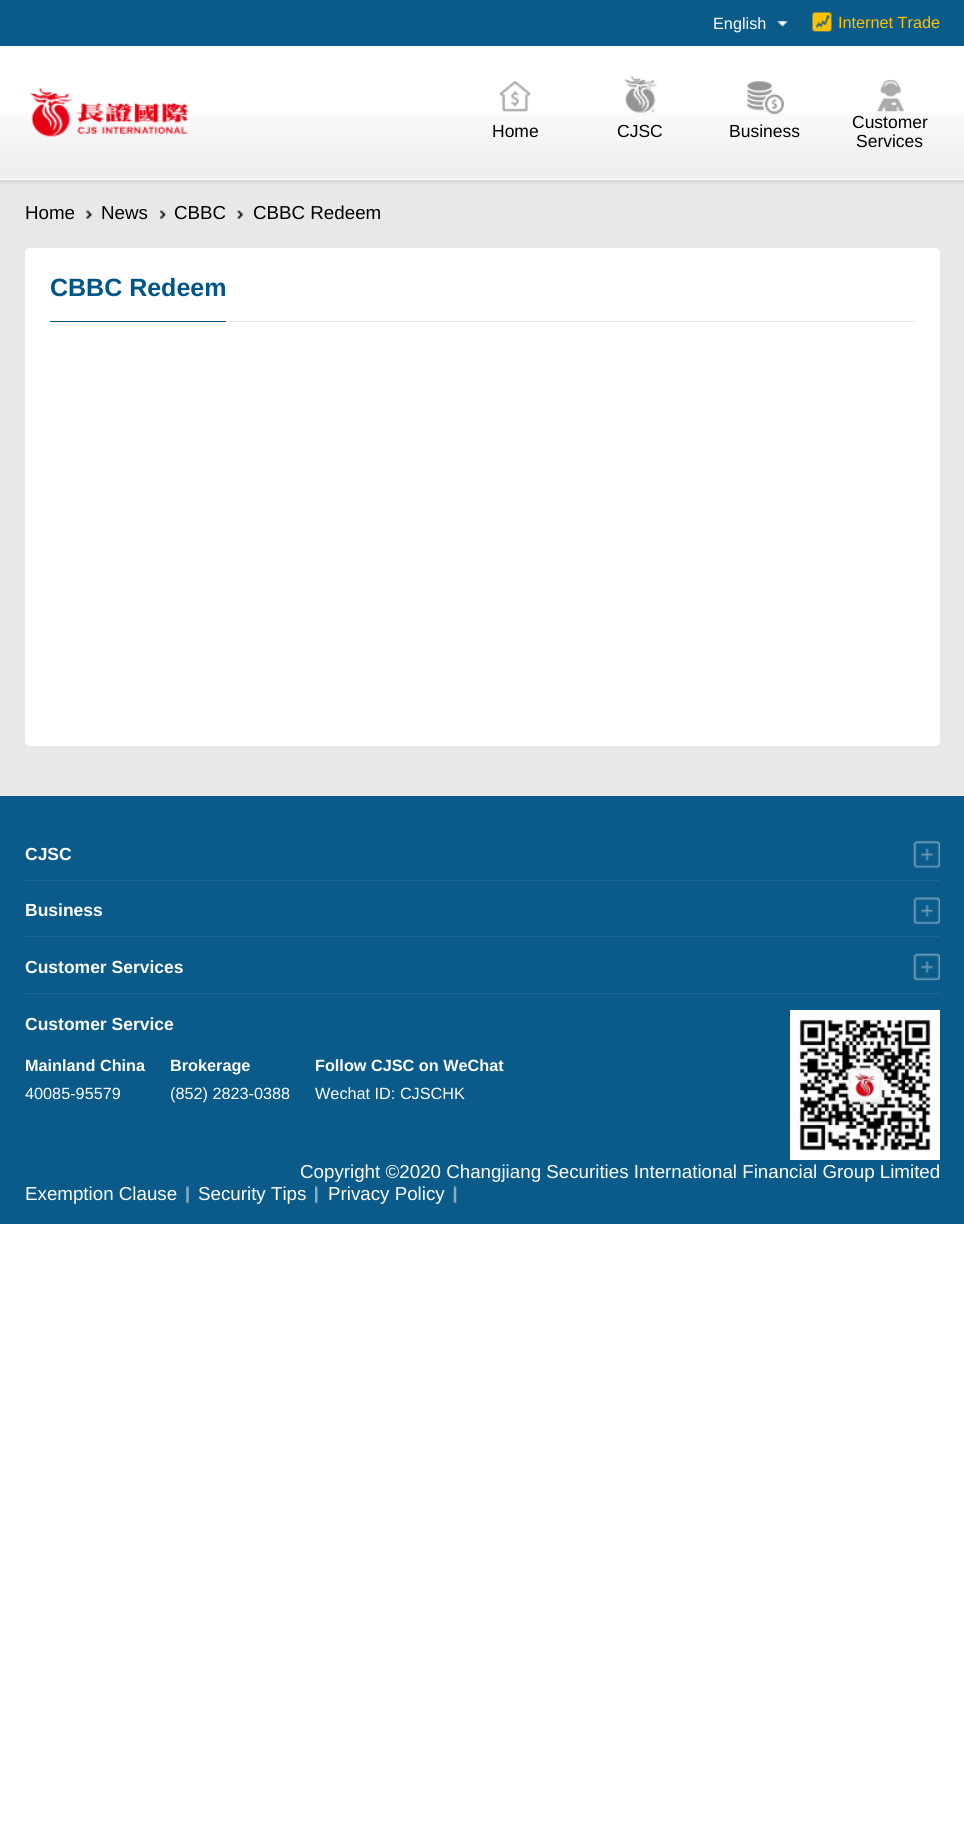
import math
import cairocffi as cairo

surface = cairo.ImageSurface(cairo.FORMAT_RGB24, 964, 1847)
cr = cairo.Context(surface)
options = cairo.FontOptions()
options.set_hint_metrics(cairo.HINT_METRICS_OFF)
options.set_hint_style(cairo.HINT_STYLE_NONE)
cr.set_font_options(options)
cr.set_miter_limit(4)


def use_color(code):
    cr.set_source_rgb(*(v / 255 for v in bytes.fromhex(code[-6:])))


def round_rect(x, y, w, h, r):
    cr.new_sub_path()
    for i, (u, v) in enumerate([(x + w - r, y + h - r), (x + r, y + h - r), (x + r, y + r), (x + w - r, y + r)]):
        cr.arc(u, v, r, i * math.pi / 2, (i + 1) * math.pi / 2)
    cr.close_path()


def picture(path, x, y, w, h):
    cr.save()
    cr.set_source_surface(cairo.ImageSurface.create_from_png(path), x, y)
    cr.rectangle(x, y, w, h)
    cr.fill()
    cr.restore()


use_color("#ffffff")
cr.paint()
use_color("#0b5b8a")
cr.rectangle(0, 0, 964, 46)
cr.fill()
cr.select_font_face("Liberation Sans")
cr.set_font_size(16.25)
use_color("#ffffff")
cr.move_to(713, 29)
cr.show_text("English")
picture("img1.png", 777, 21, 11, 6)
picture("img2.png", 812, 12, 20, 20)
use_color("#ffc000")
cr.move_to(838, 28)
cr.show_text("Internet Trade")
use_color("#e8e8e8")
cr.rectangle(0, 180, 964, 616)
cr.fill()
picture("img3.png", 0, 113, 964, 71)
picture("img4.png", 29, 87, 160, 50)
picture("img5.png", 500, 81, 30, 31)
cr.set_font_size(17.5)
use_color("#000000")
cr.move_to(492, 137)
cr.show_text("Home")
picture("img6.png", 623, 76, 35, 37)
cr.move_to(617, 137)
cr.show_text("CJSC")
picture("img7.png", 747, 81, 37, 33)
cr.move_to(729, 137)
cr.show_text("Business")
picture("img8.png", 877, 79, 27, 33)
cr.move_to(852, 128)
cr.show_text("Customer")
cr.move_to(856, 147)
cr.show_text("Services")
picture("img9.png", 86, 210, 7, 9)
cr.set_font_size(18.75)
cr.move_to(25, 219)
cr.show_text("Home")
picture("img10.png", 160, 210, 7, 9)
cr.move_to(101, 219)
cr.show_text("News")
picture("img11.png", 237, 210, 7, 9)
cr.move_to(174, 219)
cr.show_text("CBBC")
cr.move_to(253, 219)
cr.show_text("CBBC Redeem")
use_color("#ffffff")
round_rect(25, 248, 915, 498, 5)
cr.fill()
use_color("#e8e8e8")
cr.rectangle(226, 321, 689, 1)
cr.fill()
cr.select_font_face("Liberation Sans", cairo.FONT_SLANT_NORMAL, cairo.FONT_WEIGHT_BOLD)
cr.set_font_size(25)
use_color("#005587")
cr.move_to(50, 296)
cr.show_text("CBBC Redeem")
cr.rectangle(50, 321, 176, 1)
cr.fill()
use_color("#0b5b8a")
cr.rectangle(0, 796, 964, 428)
cr.fill()
use_color("#1a6693")
cr.rectangle(25, 880, 915, 1)
cr.fill()
cr.set_font_size(17.5)
use_color("#ffffff")
cr.move_to(25, 860)
cr.show_text("CJSC")
picture("img12.png", 913, 841, 27, 27)
use_color("#1a6693")
cr.rectangle(25, 936, 915, 1)
cr.fill()
use_color("#ffffff")
cr.move_to(25, 916)
cr.show_text("Business")
picture("img13.png", 913, 897, 27, 27)
use_color("#1a6693")
cr.rectangle(25, 993, 915, 1)
cr.fill()
use_color("#ffffff")
cr.move_to(25, 973)
cr.show_text("Customer Services")
picture("img14.png", 913, 953, 27, 28)
cr.move_to(25, 1030)
cr.show_text("Customer Service")
cr.set_font_size(16.25)
cr.move_to(25, 1071)
cr.show_text("Mainland China")
cr.select_font_face("Liberation Sans")
cr.move_to(25, 1099)
cr.show_text("40085-95579")
cr.select_font_face("Liberation Sans", cairo.FONT_SLANT_NORMAL, cairo.FONT_WEIGHT_BOLD)
cr.move_to(170, 1071)
cr.show_text("Brokerage")
cr.select_font_face("Liberation Sans")
cr.move_to(170, 1099)
cr.show_text("(852) 2823-0388")
cr.select_font_face("Liberation Sans", cairo.FONT_SLANT_NORMAL, cairo.FONT_WEIGHT_BOLD)
cr.move_to(315, 1071)
cr.show_text("Follow CJSC on WeChat")
cr.select_font_face("Liberation Sans")
cr.move_to(315, 1099)
cr.show_text("Wechat ID: CJSCHK")
picture("img15.png", 790, 1010, 150, 150)
cr.set_font_size(18.75)
cr.move_to(300, 1178)
cr.show_text("Copyright ©2020 Changjiang Securities International Financial Group Limited")
picture("img16.png", 186, 1186, 3, 18)
cr.move_to(25, 1200)
cr.show_text("Exemption Clause")
picture("img17.png", 315, 1186, 3, 18)
cr.move_to(198, 1200)
cr.show_text("Security Tips")
picture("img18.png", 453, 1186, 4, 18)
cr.move_to(328, 1200)
cr.show_text("Privacy Policy")
surface.write_to_png("result.png")
